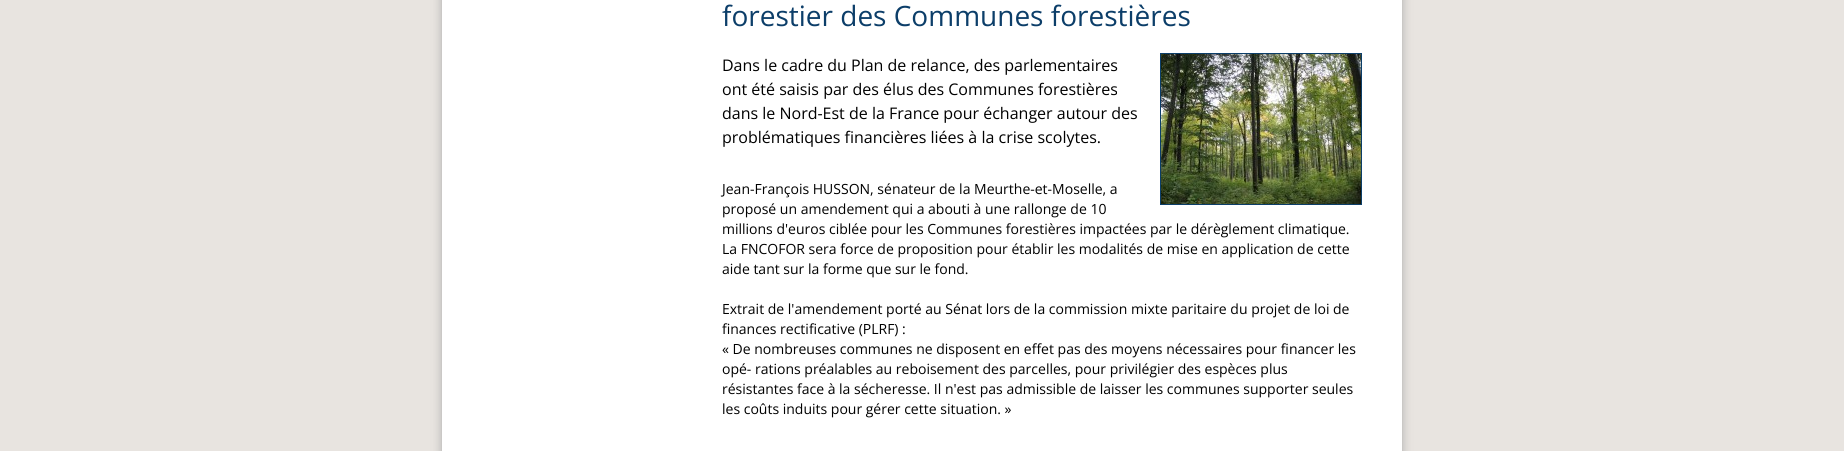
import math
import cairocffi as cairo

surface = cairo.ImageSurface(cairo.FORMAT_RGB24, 1844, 451)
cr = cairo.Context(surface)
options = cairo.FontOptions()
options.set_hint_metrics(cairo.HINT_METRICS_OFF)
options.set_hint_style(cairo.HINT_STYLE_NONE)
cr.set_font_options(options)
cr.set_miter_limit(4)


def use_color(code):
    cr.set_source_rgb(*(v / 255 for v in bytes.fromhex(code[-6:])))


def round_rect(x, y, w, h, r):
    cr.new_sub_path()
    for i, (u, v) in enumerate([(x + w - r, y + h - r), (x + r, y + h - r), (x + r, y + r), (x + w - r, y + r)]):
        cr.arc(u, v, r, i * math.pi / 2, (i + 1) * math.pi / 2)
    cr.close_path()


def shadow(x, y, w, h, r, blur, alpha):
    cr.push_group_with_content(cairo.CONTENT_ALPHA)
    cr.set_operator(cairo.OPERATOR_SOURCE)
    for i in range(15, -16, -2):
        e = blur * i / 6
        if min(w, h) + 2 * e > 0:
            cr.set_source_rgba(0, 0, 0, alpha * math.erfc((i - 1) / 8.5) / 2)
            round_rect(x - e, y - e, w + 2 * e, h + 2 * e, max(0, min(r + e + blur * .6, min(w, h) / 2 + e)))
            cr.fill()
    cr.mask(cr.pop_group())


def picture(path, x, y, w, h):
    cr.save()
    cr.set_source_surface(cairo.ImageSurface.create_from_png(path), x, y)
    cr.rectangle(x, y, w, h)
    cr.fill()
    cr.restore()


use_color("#e8e4e0")
cr.paint()
use_color("#aaaaaa")
shadow(442, -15, 960, 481, 0, 5, 1)
use_color("#ffffff")
cr.rectangle(442, 0, 960, 451)
cr.fill()
cr.select_font_face("Open Sans")
cr.set_font_size(28)
use_color("#0c3e69")
cr.move_to(722, 26)
cr.show_text("forestier des Communes forestières")
cr.set_font_size(16)
use_color("#000000")
cr.move_to(722, 71)
cr.show_text("Dans le cadre du Plan de relance, des parlementaires")
cr.rectangle(1160.5, 53.5, 201, 151)
use_color("#0c3e69")
cr.set_line_width(1)
cr.stroke()
picture("img1.png", 1161, 54, 200, 150)
use_color("#000000")
cr.move_to(722, 95)
cr.show_text("ont été saisis par des élus des Communes forestières")
cr.move_to(722, 119)
cr.show_text("dans le Nord-Est de la France pour échanger autour des")
cr.move_to(722, 143)
cr.show_text("problématiques financières liées à la crise scolytes.")
cr.set_font_size(14)
cr.move_to(722, 194)
cr.show_text("Jean-François HUSSON, sénateur de la Meurthe-et-Moselle, a")
cr.move_to(722, 214)
cr.show_text("proposé un amendement qui a abouti à une rallonge de 10")
cr.move_to(722, 234)
cr.show_text("millions d'euros ciblée pour les Communes forestières impactées par le dérèglement climatique.")
cr.move_to(722, 254)
cr.show_text("La FNCOFOR sera force de proposition pour établir les modalités de mise en application de cette")
cr.move_to(722, 274)
cr.show_text("aide tant sur la forme que sur le fond.")
cr.move_to(722, 314)
cr.show_text("Extrait de l'amendement porté au Sénat lors de la commission mixte paritaire du projet de loi de")
cr.move_to(722, 334)
cr.show_text("finances rectificative (PLRF) :")
cr.move_to(722, 354)
cr.show_text("« De nombreuses communes ne disposent en effet pas des moyens nécessaires pour financer les")
cr.move_to(722, 374)
cr.show_text("opé- rations préalables au reboisement des parcelles, pour privilégier des espèces plus")
cr.move_to(722, 394)
cr.show_text("résistantes face à la sécheresse. Il n'est pas admissible de laisser les communes supporter seules")
cr.move_to(722, 414)
cr.show_text("les coûts induits pour gérer cette situation. »")
surface.write_to_png("result.png")
